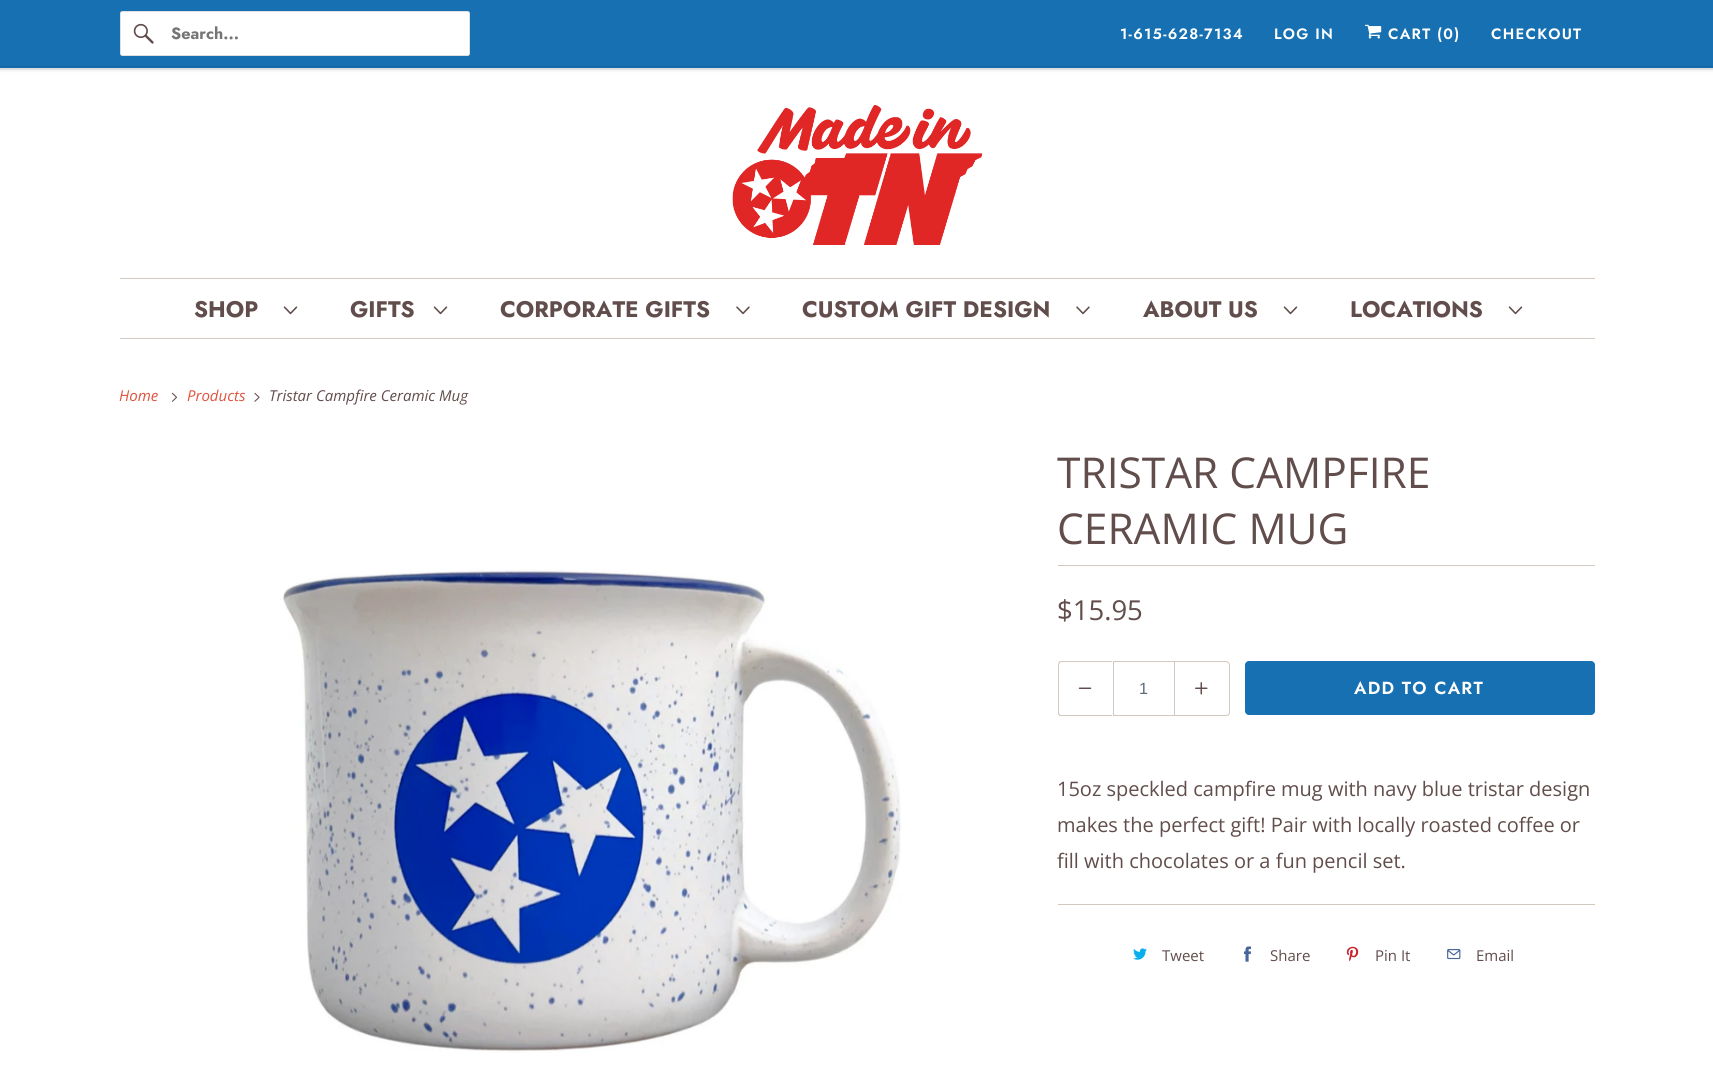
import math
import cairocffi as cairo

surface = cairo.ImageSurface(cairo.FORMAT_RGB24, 1713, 1082)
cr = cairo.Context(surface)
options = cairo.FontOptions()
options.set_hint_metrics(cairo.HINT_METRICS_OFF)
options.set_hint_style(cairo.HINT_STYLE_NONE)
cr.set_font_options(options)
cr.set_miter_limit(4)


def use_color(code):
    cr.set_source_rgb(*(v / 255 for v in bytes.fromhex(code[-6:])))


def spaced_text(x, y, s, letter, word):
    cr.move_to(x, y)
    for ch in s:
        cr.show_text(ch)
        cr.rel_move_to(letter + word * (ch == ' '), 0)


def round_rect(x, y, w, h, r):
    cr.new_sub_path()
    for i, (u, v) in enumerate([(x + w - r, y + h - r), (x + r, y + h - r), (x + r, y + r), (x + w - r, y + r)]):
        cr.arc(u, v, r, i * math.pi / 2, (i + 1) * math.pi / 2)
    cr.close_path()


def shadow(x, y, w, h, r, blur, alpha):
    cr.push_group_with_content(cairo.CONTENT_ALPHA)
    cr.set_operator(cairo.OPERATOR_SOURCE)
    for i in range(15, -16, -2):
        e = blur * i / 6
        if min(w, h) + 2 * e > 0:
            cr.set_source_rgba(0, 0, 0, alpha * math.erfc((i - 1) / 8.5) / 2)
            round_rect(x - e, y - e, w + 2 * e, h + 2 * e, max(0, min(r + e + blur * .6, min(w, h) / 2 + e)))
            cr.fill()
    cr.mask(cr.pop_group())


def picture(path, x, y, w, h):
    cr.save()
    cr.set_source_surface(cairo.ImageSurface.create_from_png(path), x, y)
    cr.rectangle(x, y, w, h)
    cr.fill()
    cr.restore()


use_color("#ffffff")
cr.paint()
use_color("#000000")
shadow(0, 1, 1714, 68, 0, 2, 0.25)
use_color("#1670b1")
cr.rectangle(0, 0, 1713, 68)
cr.fill()
use_color("#14659f")
cr.rectangle(0, 66, 1713, 1)
cr.fill()
use_color("#ffffff")
round_rect(120.5, 11.5, 349, 44, 2)
cr.fill_preserve()
use_color("#dfdfdf")
cr.set_line_width(1)
cr.stroke()
picture("img1.png", 133, 23, 21, 21)
cr.select_font_face("Jost", cairo.FONT_SLANT_NORMAL, cairo.FONT_WEIGHT_BOLD)
cr.set_font_size(16.25)
use_color("#757575")
cr.move_to(171, 39)
cr.show_text("Search...")
cr.select_font_face("Jost SemiBold")
cr.set_font_size(15)
use_color("#ffffff")
spaced_text(1120, 39, "1-615-628-7134", 1.25, 0)
spaced_text(1274, 39, "LOG IN", 1.25, 0)
picture("img2.png", 1365, 24, 17, 15)
spaced_text(1388, 39, "CART (0)", 1.25, 0)
spaced_text(1491, 39, "CHECKOUT", 1.25, 0)
picture("img3.png", 732, 105, 251, 140)
use_color("#d1c8bf")
cr.rectangle(120, 278, 1475, 1)
cr.fill()
cr.rectangle(120, 338, 1475, 1)
cr.fill()
cr.select_font_face("Jost", cairo.FONT_SLANT_NORMAL, cairo.FONT_WEIGHT_BOLD)
cr.set_font_size(22.5)
use_color("#614d4b")
cr.move_to(194, 317)
cr.show_text("SHOP")
picture("img4.png", 283, 306, 15, 9)
cr.move_to(350, 317)
cr.show_text("GIFTS")
picture("img4.png", 433, 306, 15, 9)
cr.move_to(500, 317)
cr.show_text("CORPORATE GIFTS")
picture("img5.png", 736, 306, 14, 9)
cr.move_to(802, 317)
cr.show_text("CUSTOM GIFT DESIGN")
picture("img5.png", 1076, 306, 14, 9)
cr.move_to(1143, 317)
cr.show_text("ABOUT US")
picture("img4.png", 1283, 306, 15, 9)
cr.move_to(1350, 317)
cr.show_text("LOCATIONS")
picture("img4.png", 1508, 306, 15, 9)
cr.select_font_face("Open Sans", cairo.FONT_SLANT_ITALIC)
cr.set_font_size(15)
use_color("#e1523d")
cr.move_to(119, 401)
cr.show_text("Home")
picture("img6.png", 171, 392, 7, 10)
cr.move_to(187, 401)
cr.show_text("Products")
picture("img7.png", 254, 392, 6, 10)
use_color("#614d4b")
cr.move_to(269, 401)
cr.show_text("Tristar Campfire Ceramic Mug")
picture("img8.png", 283, 569, 619, 484)
use_color("#d1c8bf")
cr.rectangle(1058, 565, 537, 1)
cr.fill()
cr.select_font_face("Open Sans")
cr.set_font_size(42.5)
use_color("#614d4b")
cr.move_to(1057, 488)
cr.show_text("TRISTAR CAMPFIRE")
cr.move_to(1057, 544)
cr.show_text("CERAMIC MUG")
cr.set_font_size(27.5)
cr.move_to(1057, 620)
cr.show_text("$15.95")
use_color("#d1c8bf")
cr.set_fill_rule(cairo.FILL_RULE_EVEN_ODD)
cr.new_path()
cr.move_to(1061, 661)
cr.line_to(1112, 661)
cr.line_to(1112, 716)
cr.line_to(1061, 716)
cr.curve_to(1059, 716, 1058, 715, 1058, 712)
cr.line_to(1058, 665)
cr.curve_to(1058, 663, 1059, 661, 1061, 661)
cr.close_path()
cr.move_to(1061, 662)
cr.line_to(1112, 662)
cr.line_to(1112, 715)
cr.line_to(1061, 715)
cr.curve_to(1060, 715, 1059, 714, 1059, 712)
cr.line_to(1059, 665)
cr.curve_to(1059, 664, 1060, 662, 1061, 662)
cr.close_path()
cr.fill()
picture("img9.png", 1078, 687, 14, 2)
cr.rectangle(1113.5, 661.5, 61, 54)
cr.stroke()
cr.select_font_face("Liberation Sans")
cr.set_font_size(16.25)
use_color("#5f6a7d")
cr.move_to(1139, 694)
cr.show_text("1")
use_color("#d1c8bf")
cr.new_path()
cr.move_to(1175, 661)
cr.line_to(1226, 661)
cr.curve_to(1228, 661, 1230, 663, 1230, 665)
cr.line_to(1230, 712)
cr.curve_to(1230, 715, 1228, 716, 1226, 716)
cr.line_to(1175, 716)
cr.close_path()
cr.move_to(1175, 662)
cr.line_to(1226, 662)
cr.curve_to(1228, 662, 1229, 664, 1229, 665)
cr.line_to(1229, 712)
cr.curve_to(1229, 714, 1228, 715, 1226, 715)
cr.line_to(1175, 715)
cr.close_path()
cr.fill()
picture("img10.png", 1195, 682, 13, 13)
use_color("#1670b1")
round_rect(1245.5, 661.5, 349, 53, 3.5)
cr.fill_preserve()
cr.stroke()
cr.select_font_face("Jost SemiBold")
cr.set_font_size(17.5)
use_color("#ffffff")
spaced_text(1354, 694, "ADD TO CART", 1.25, 0)
cr.select_font_face("Open Sans")
cr.set_font_size(20)
use_color("#614d4b")
cr.move_to(1057, 796)
cr.show_text("15oz speckled campfire mug with navy blue tristar design")
cr.move_to(1057, 832)
cr.show_text("makes the perfect gift! Pair with locally roasted coffee or")
cr.move_to(1057, 868)
cr.show_text("fill with chocolates or a fun pencil set.")
use_color("#d1c8bf")
cr.rectangle(1058, 904, 537, 1)
cr.fill()
picture("img11.png", 1133, 948, 14, 12)
cr.set_font_size(15)
use_color("#614d4b")
cr.move_to(1162, 961)
cr.show_text("Tweet")
picture("img12.png", 1244, 946, 7, 16)
cr.move_to(1270, 961)
cr.show_text("Share")
picture("img13.png", 1346, 946, 13, 16)
cr.move_to(1375, 961)
cr.show_text("Pin It")
picture("img14.png", 1447, 949, 14, 11)
cr.move_to(1476, 961)
cr.show_text("Email")
surface.write_to_png("result.png")
